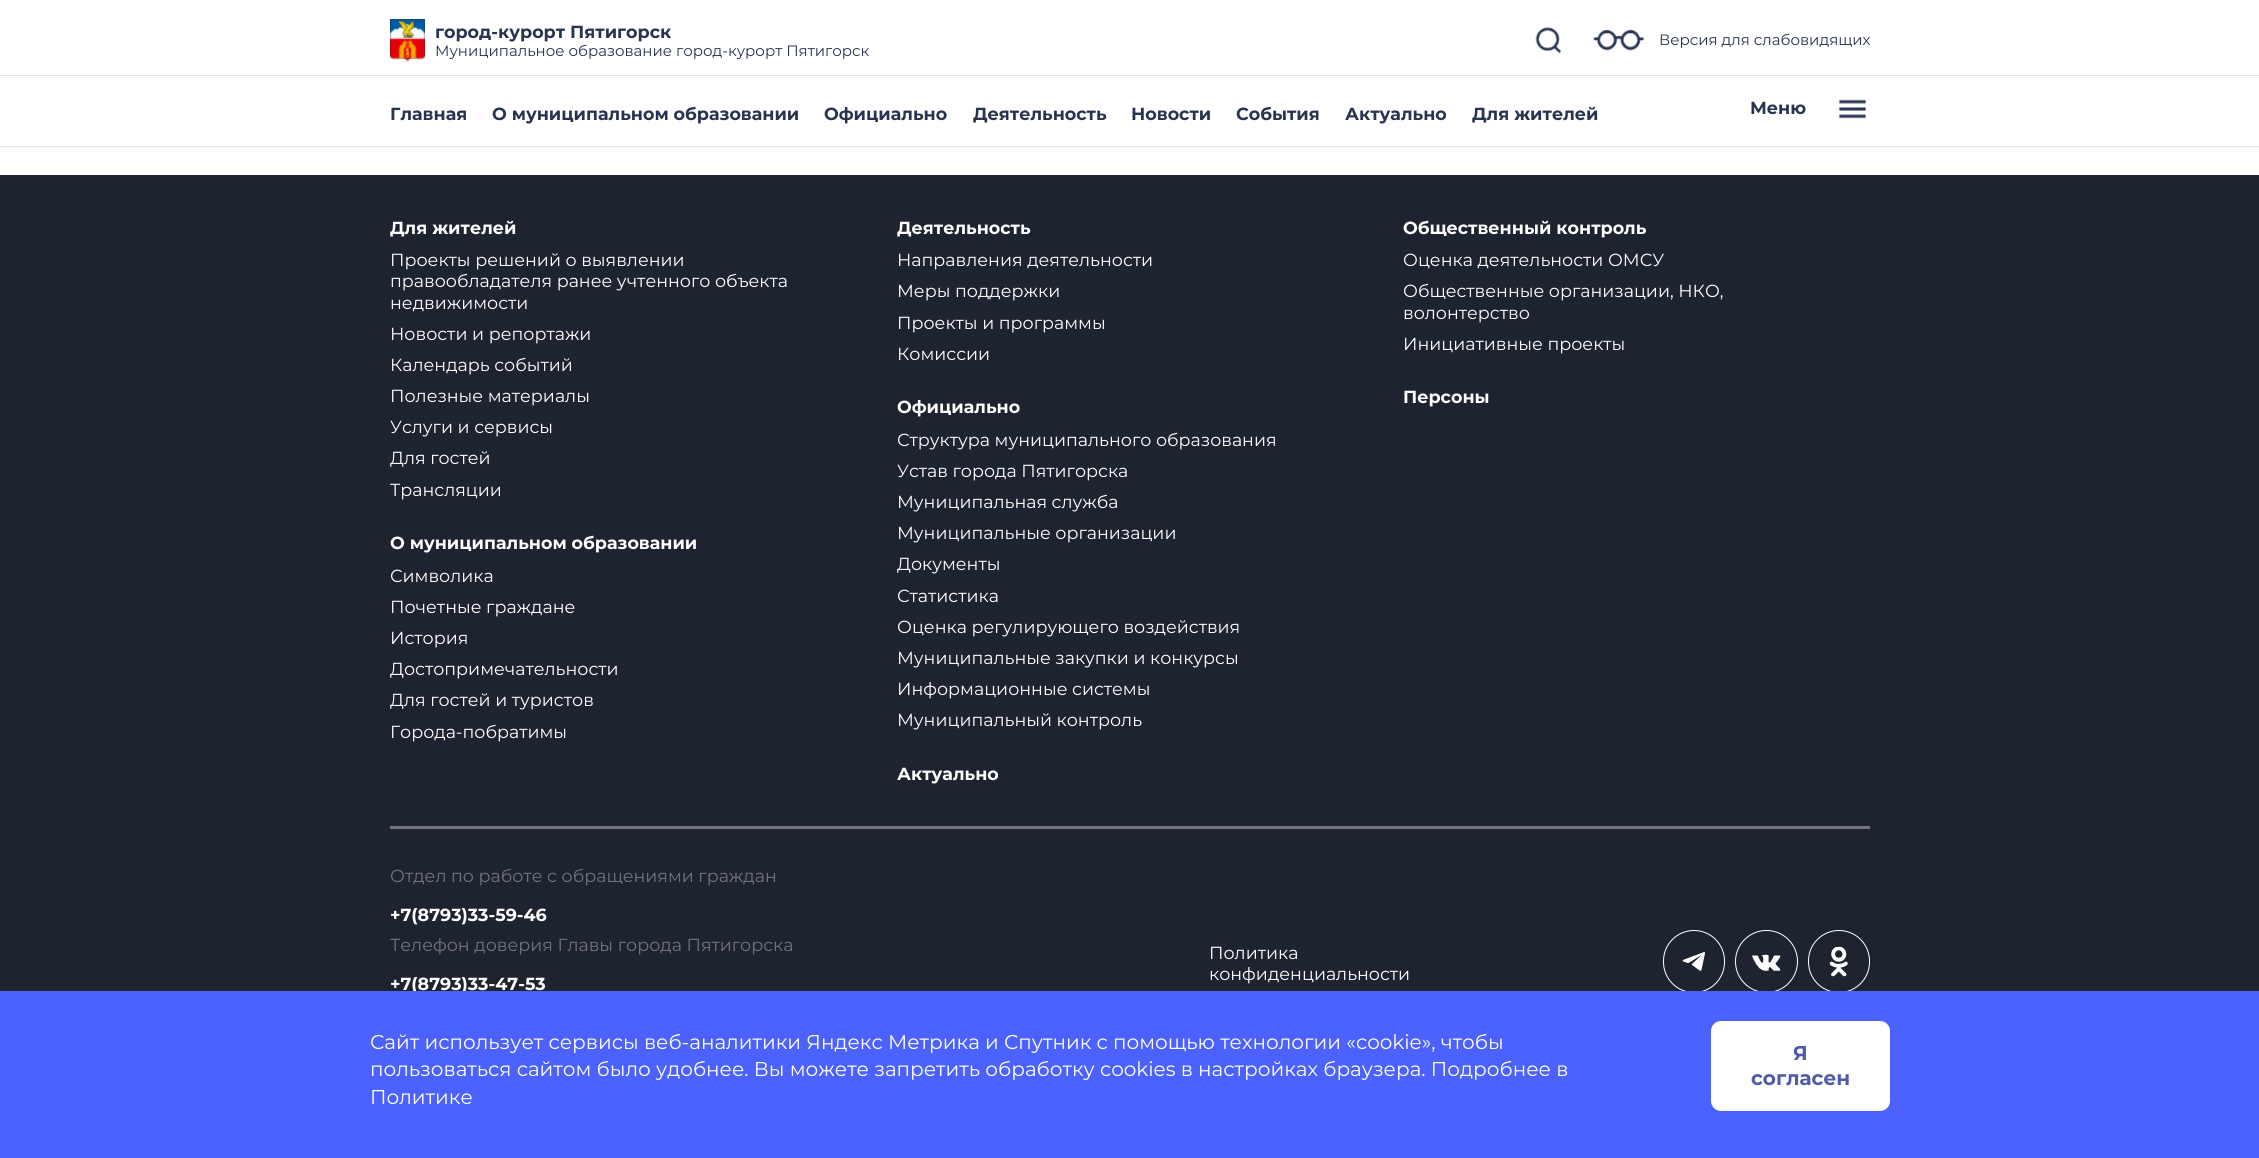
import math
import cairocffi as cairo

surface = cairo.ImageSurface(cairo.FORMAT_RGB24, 2259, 1158)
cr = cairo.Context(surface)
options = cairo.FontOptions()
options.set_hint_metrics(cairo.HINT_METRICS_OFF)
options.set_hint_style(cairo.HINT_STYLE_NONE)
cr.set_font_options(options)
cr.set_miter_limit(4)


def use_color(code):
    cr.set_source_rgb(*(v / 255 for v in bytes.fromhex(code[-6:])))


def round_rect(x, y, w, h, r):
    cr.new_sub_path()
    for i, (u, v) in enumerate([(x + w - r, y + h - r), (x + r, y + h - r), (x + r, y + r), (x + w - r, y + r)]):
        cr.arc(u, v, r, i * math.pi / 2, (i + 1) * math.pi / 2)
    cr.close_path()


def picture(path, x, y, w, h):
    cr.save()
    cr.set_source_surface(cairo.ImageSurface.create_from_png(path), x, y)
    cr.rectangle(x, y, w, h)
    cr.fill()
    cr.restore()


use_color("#ffffff")
cr.paint()
use_color("#e3e3e3")
cr.rectangle(0, 75, 2259, 1)
cr.fill()
picture("img1.png", 390, 19, 35, 43)
cr.select_font_face("Montserrat", cairo.FONT_SLANT_NORMAL, cairo.FONT_WEIGHT_BOLD)
cr.set_font_size(17.5)
use_color("#273350")
cr.move_to(435, 38)
cr.show_text("город-курорт Пятигорск")
cr.select_font_face("Montserrat")
cr.set_font_size(15)
cr.move_to(435, 56)
cr.show_text("Муниципальное образование город-курорт Пятигорск")
picture("img2.png", 1535, 27, 26, 27)
picture("img3.png", 1593, 29, 51, 22)
cr.move_to(1659, 45)
cr.show_text("Версия для слабовидящих")
use_color("#e3e3e3")
cr.rectangle(0, 146, 2259, 1)
cr.fill()
cr.select_font_face("Montserrat", cairo.FONT_SLANT_NORMAL, cairo.FONT_WEIGHT_BOLD)
cr.set_font_size(17.5)
use_color("#273350")
cr.move_to(390, 120)
cr.show_text("Главная")
cr.move_to(492, 120)
cr.show_text("О муниципальном образовании")
cr.move_to(824, 120)
cr.show_text("Официально")
cr.move_to(973, 120)
cr.show_text("Деятельность")
cr.move_to(1131, 120)
cr.show_text("Новости")
cr.move_to(1236, 120)
cr.show_text("События")
cr.move_to(1345, 120)
cr.show_text("Актуально")
cr.move_to(1472, 120)
cr.show_text("Для жителей")
cr.move_to(1750, 114)
cr.show_text("Меню")
picture("img4.png", 1839, 99, 27, 20)
use_color("#1d232f")
cr.rectangle(0, 175, 2259, 816)
cr.fill()
use_color("#ffffff")
cr.move_to(390, 234)
cr.show_text("Для жителей")
cr.select_font_face("Montserrat")
cr.move_to(390, 266)
cr.show_text("Проекты решений о выявлении")
cr.move_to(390, 287)
cr.show_text("правообладателя ранее учтенного объекта")
cr.move_to(390, 309)
cr.show_text("недвижимости")
cr.move_to(390, 340)
cr.show_text("Новости и репортажи")
cr.move_to(390, 371)
cr.show_text("Календарь событий")
cr.move_to(390, 402)
cr.show_text("Полезные материалы")
cr.move_to(390, 433)
cr.show_text("Услуги и сервисы")
cr.move_to(390, 464)
cr.show_text("Для гостей")
cr.move_to(390, 496)
cr.show_text("Трансляции")
cr.select_font_face("Montserrat", cairo.FONT_SLANT_NORMAL, cairo.FONT_WEIGHT_BOLD)
cr.move_to(390, 549)
cr.show_text("О муниципальном образовании")
cr.select_font_face("Montserrat")
cr.move_to(390, 582)
cr.show_text("Символика")
cr.move_to(390, 613)
cr.show_text("Почетные граждане")
cr.move_to(390, 644)
cr.show_text("История")
cr.move_to(390, 675)
cr.show_text("Достопримечательности")
cr.move_to(390, 706)
cr.show_text("Для гостей и туристов")
cr.move_to(390, 738)
cr.show_text("Города-побратимы")
cr.select_font_face("Montserrat", cairo.FONT_SLANT_NORMAL, cairo.FONT_WEIGHT_BOLD)
cr.move_to(897, 234)
cr.show_text("Деятельность")
cr.select_font_face("Montserrat")
cr.move_to(897, 266)
cr.show_text("Направления деятельности")
cr.move_to(897, 297)
cr.show_text("Меры поддержки")
cr.move_to(897, 329)
cr.show_text("Проекты и программы")
cr.move_to(897, 360)
cr.show_text("Комиссии")
cr.select_font_face("Montserrat", cairo.FONT_SLANT_NORMAL, cairo.FONT_WEIGHT_BOLD)
cr.move_to(897, 413)
cr.show_text("Официально")
cr.select_font_face("Montserrat")
cr.move_to(897, 446)
cr.show_text("Структура муниципального образования")
cr.move_to(897, 477)
cr.show_text("Устав города Пятигорска")
cr.move_to(897, 508)
cr.show_text("Муниципальная служба")
cr.move_to(897, 539)
cr.show_text("Муниципальные организации")
cr.move_to(897, 570)
cr.show_text("Документы")
cr.move_to(897, 602)
cr.show_text("Статистика")
cr.move_to(897, 633)
cr.show_text("Оценка регулирующего воздействия")
cr.move_to(897, 664)
cr.show_text("Муниципальные закупки и конкурсы")
cr.move_to(897, 695)
cr.show_text("Информационные системы")
cr.move_to(897, 726)
cr.show_text("Муниципальный контроль")
cr.select_font_face("Montserrat", cairo.FONT_SLANT_NORMAL, cairo.FONT_WEIGHT_BOLD)
cr.move_to(897, 780)
cr.show_text("Актуально")
cr.move_to(1403, 234)
cr.show_text("Общественный контроль")
cr.select_font_face("Montserrat")
cr.move_to(1403, 266)
cr.show_text("Оценка деятельности ОМСУ")
cr.move_to(1403, 297)
cr.show_text("Общественные организации, НКО,")
cr.move_to(1403, 319)
cr.show_text("волонтерство")
cr.move_to(1403, 350)
cr.show_text("Инициативные проекты")
cr.select_font_face("Montserrat", cairo.FONT_SLANT_NORMAL, cairo.FONT_WEIGHT_BOLD)
cr.move_to(1403, 403)
cr.show_text("Персоны")
use_color("#71747a")
cr.rectangle(390, 826, 1480, 3)
cr.fill()
cr.select_font_face("Montserrat")
cr.move_to(390, 882)
cr.show_text("Отдел по работе с обращениями граждан")
cr.select_font_face("Montserrat", cairo.FONT_SLANT_NORMAL, cairo.FONT_WEIGHT_BOLD)
use_color("#ffffff")
cr.move_to(390, 921)
cr.show_text("+7(8793)33-59-46")
cr.select_font_face("Montserrat")
use_color("#71747a")
cr.move_to(390, 951)
cr.show_text("Телефон доверия Главы города Пятигорска")
cr.select_font_face("Montserrat", cairo.FONT_SLANT_NORMAL, cairo.FONT_WEIGHT_BOLD)
use_color("#ffffff")
cr.move_to(390, 990)
cr.show_text("+7(8793)33-47-53")
cr.select_font_face("Montserrat")
cr.move_to(1209, 959)
cr.show_text("Политика")
cr.move_to(1209, 980)
cr.show_text("конфиденциальности")
round_rect(1663.5, 930.5, 61, 62, 30.5)
cr.set_line_width(1)
cr.stroke()
picture("img5.png", 1682, 952, 23, 19)
cr.arc(1766.5, 961.5, 31, 0, 2 * math.pi)
cr.stroke()
picture("img6.png", 1752, 954, 29, 17)
round_rect(1808.5, 930.5, 61, 62, 30.5)
cr.stroke()
picture("img7.png", 1829, 946, 19, 31)
use_color("#4b62ff")
cr.rectangle(0, 991, 2259, 167)
cr.fill()
cr.set_font_size(20)
use_color("#ffffff")
cr.move_to(370, 1049)
cr.show_text("Сайт использует сервисы веб-аналитики Яндекс Метрика и Спутник с помощью технологии «cookie», чтобы")
cr.move_to(370, 1076)
cr.show_text("пользоваться сайтом было удобнее. Вы можете запретить обработку cookies в настройках браузера. Подробнее в")
cr.move_to(370, 1104)
cr.show_text("Политике")
round_rect(1711, 1021, 179, 90, 10)
cr.fill()
cr.select_font_face("Montserrat", cairo.FONT_SLANT_NORMAL, cairo.FONT_WEIGHT_BOLD)
use_color("#4f5aa8")
cr.move_to(1793, 1060)
cr.show_text("Я")
cr.move_to(1751, 1085)
cr.show_text("согласен")
surface.write_to_png("result.png")
